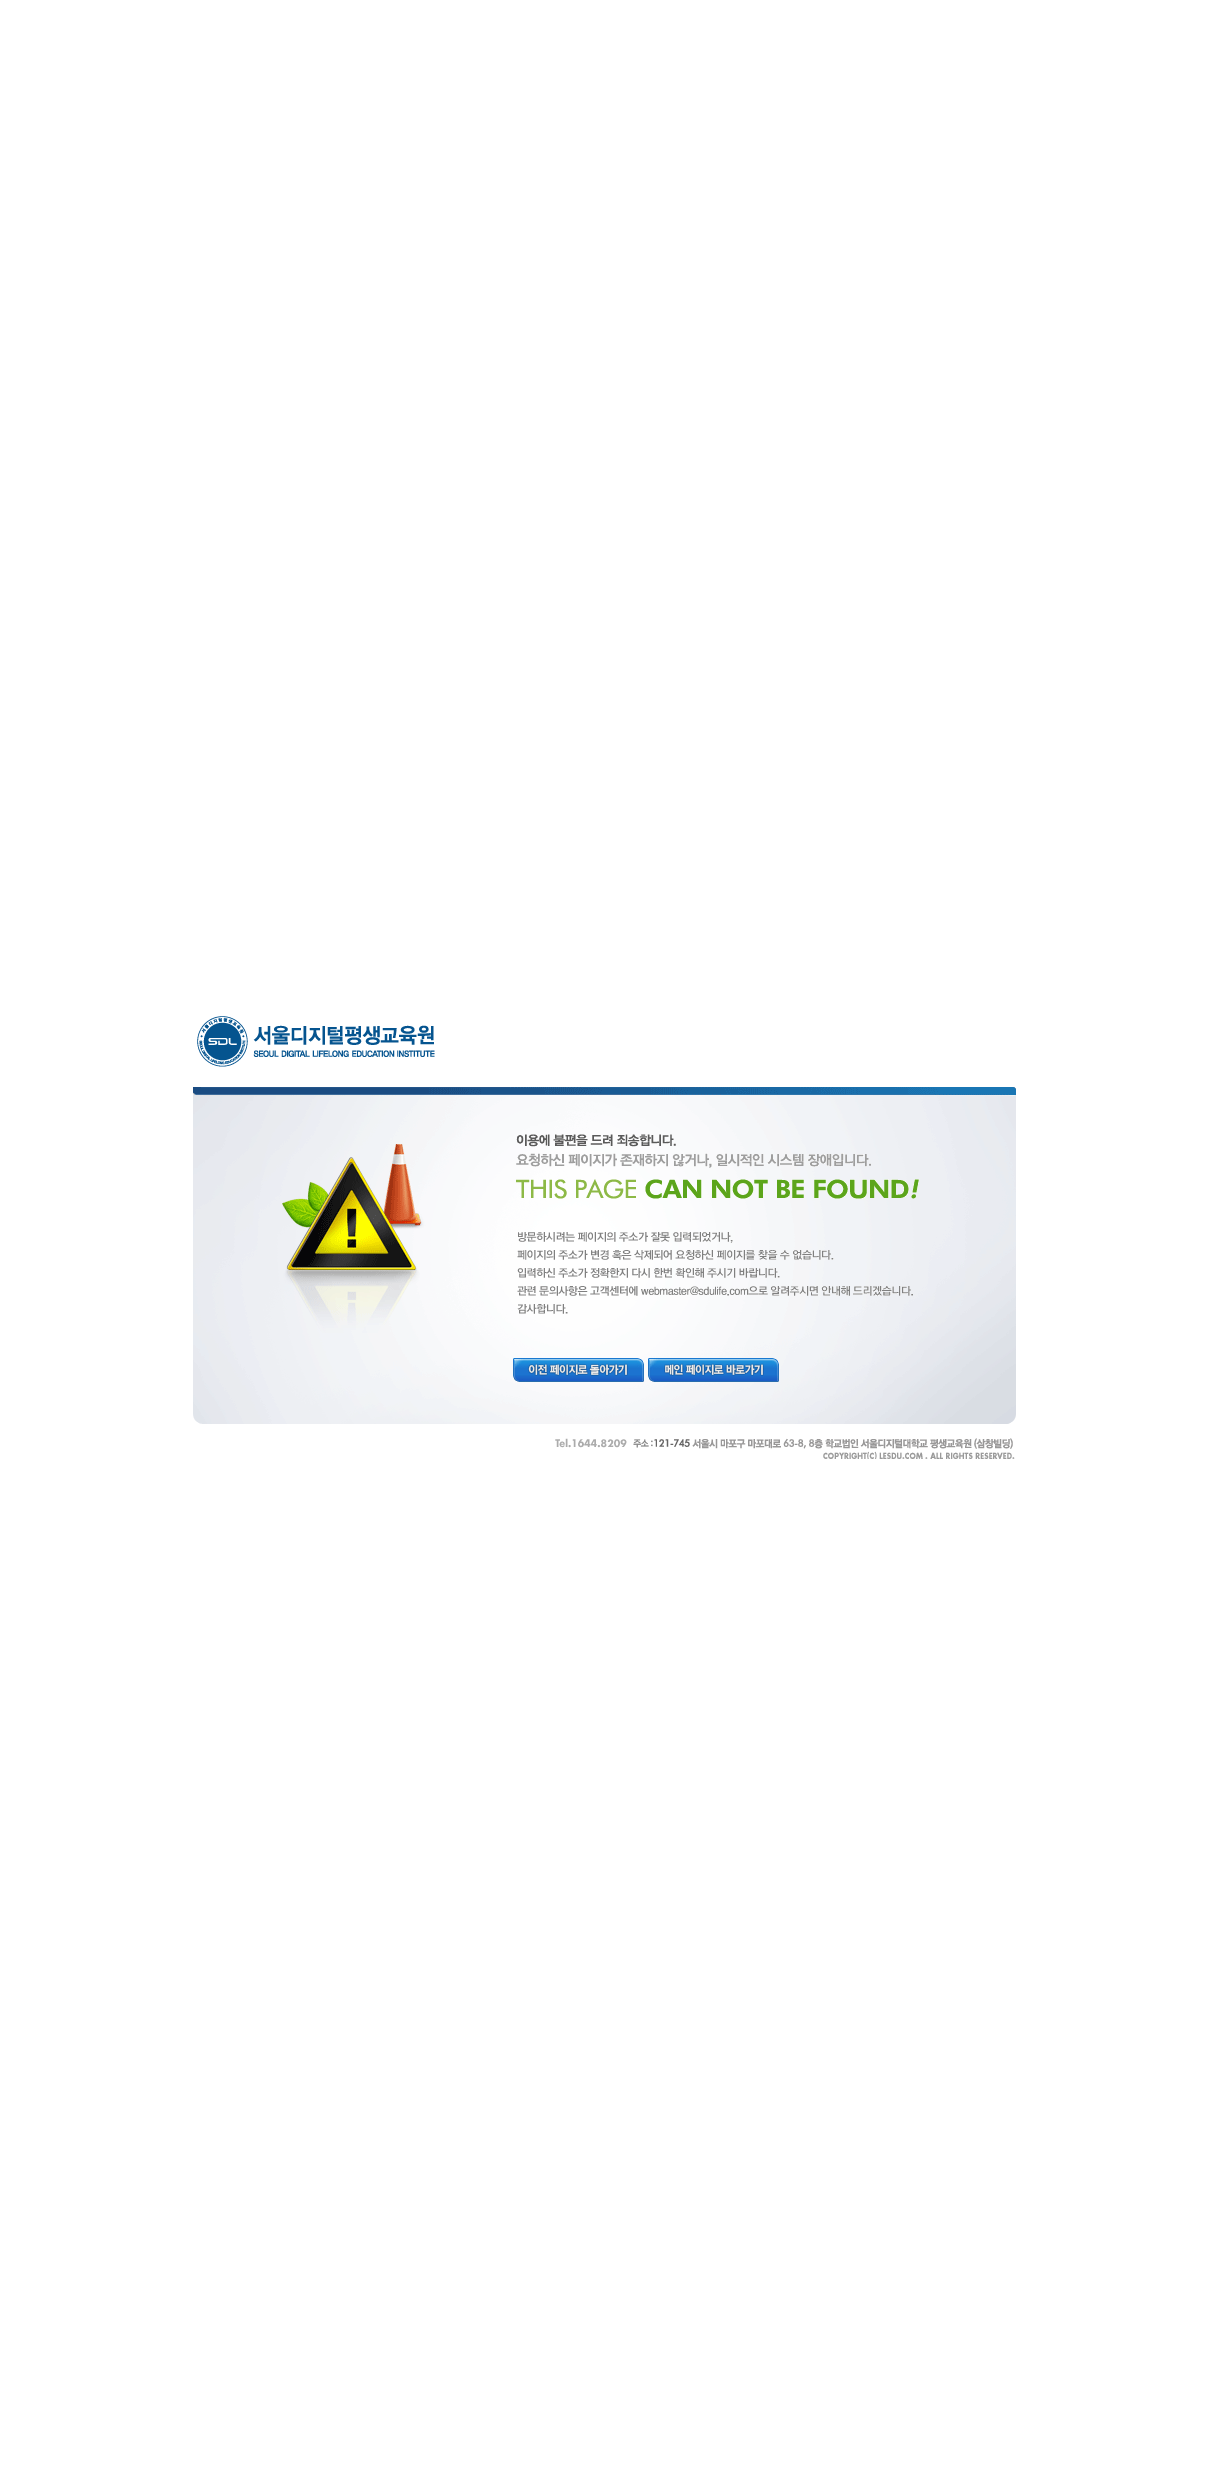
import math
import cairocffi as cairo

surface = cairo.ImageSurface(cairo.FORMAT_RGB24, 1207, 2490)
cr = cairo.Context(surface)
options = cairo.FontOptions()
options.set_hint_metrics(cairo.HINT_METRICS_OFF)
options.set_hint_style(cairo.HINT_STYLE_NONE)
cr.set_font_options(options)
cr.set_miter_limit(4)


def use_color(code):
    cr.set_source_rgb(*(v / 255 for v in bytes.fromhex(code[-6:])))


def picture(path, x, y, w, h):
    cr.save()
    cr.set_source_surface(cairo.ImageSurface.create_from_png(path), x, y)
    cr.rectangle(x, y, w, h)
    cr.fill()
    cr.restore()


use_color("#ffffff")
cr.paint()
picture("img1.png", 197, 1016, 238, 51)
picture("img2.png", 193, 1087, 823, 337)
picture("img3.png", 516, 1134, 403, 65)
picture("img4.png", 517, 1232, 396, 82)
picture("img5.png", 513, 1358, 131, 24)
picture("img6.png", 648, 1358, 131, 24)
picture("img7.png", 555, 1438, 460, 21)
surface.write_to_png("result.png")
